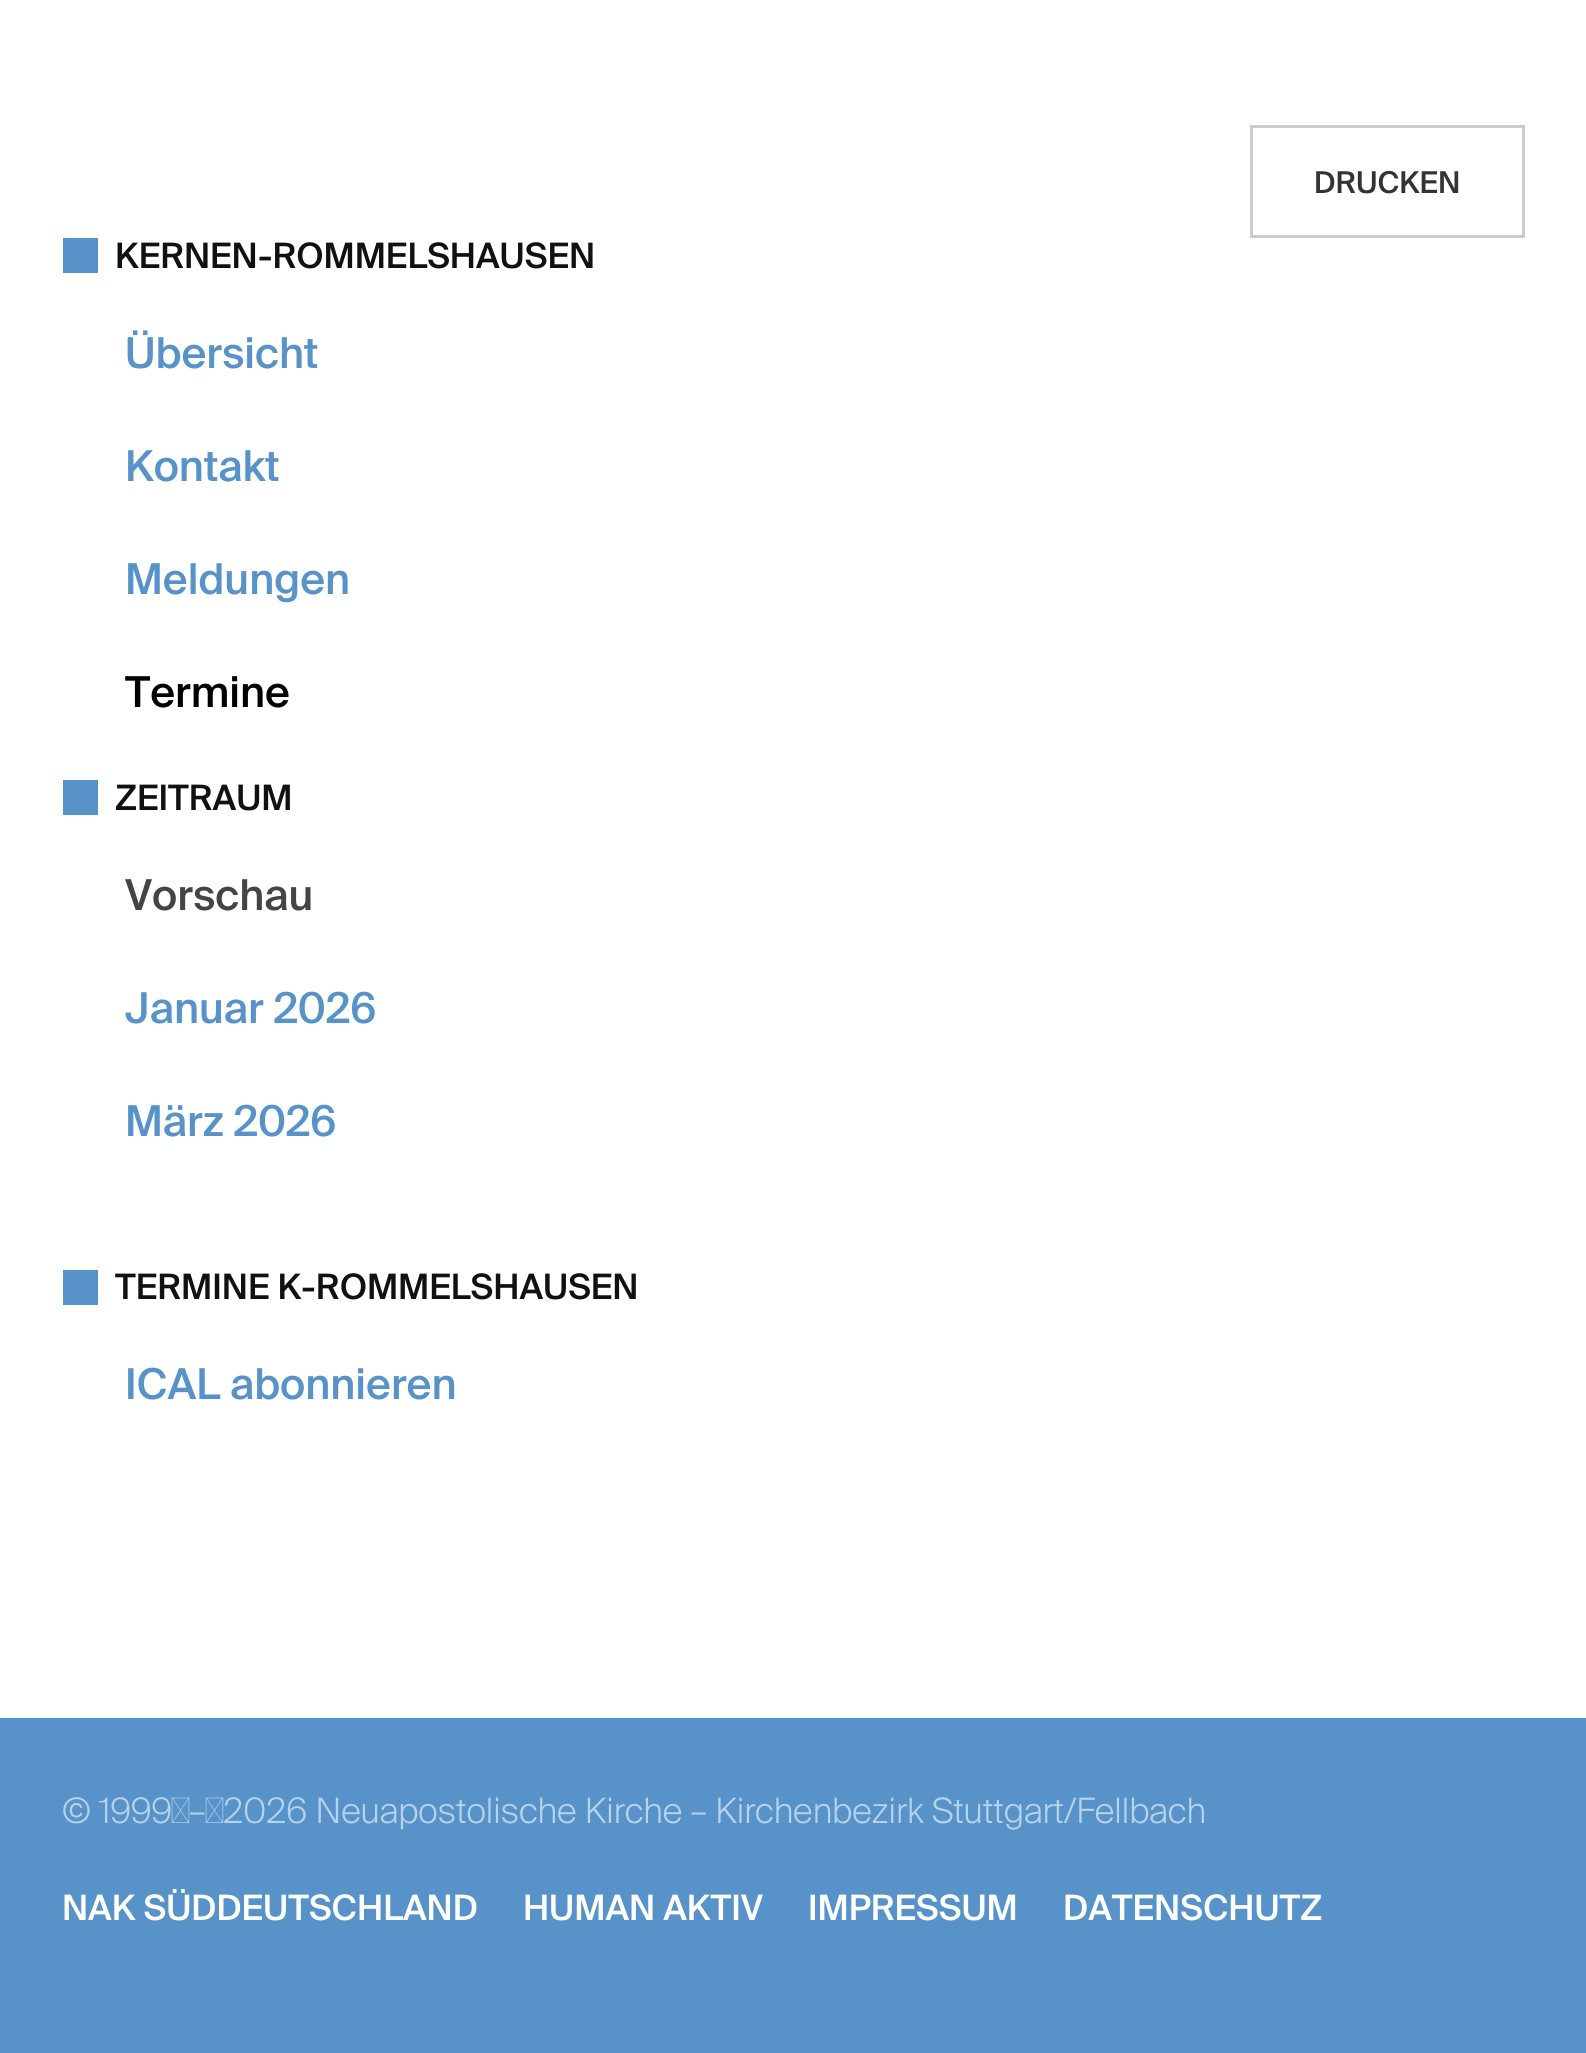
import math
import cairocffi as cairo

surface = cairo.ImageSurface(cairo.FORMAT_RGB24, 1586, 2053)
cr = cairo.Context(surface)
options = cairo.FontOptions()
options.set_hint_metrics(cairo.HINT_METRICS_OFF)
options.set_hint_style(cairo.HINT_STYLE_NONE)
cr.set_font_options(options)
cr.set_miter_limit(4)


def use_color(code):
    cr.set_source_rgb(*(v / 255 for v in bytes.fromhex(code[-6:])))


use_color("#ffffff")
cr.paint()
cr.rectangle(1251.5, 126.5, 272, 110)
use_color("#cccccc")
cr.set_line_width(3)
cr.stroke()
cr.select_font_face("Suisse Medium")
cr.set_font_size(30)
use_color("#333333")
cr.move_to(1314, 193)
cr.show_text("DRUCKEN")
use_color("#5793c9")
cr.rectangle(63, 238, 35, 35)
cr.fill()
cr.set_font_size(35)
use_color("#111111")
cr.move_to(115, 268)
cr.show_text("KERNEN-ROMMELSHAUSEN")
cr.set_font_size(42.5)
use_color("#5793c9")
cr.move_to(125, 368)
cr.show_text("Übersicht")
cr.move_to(125, 481)
cr.show_text("Kontakt")
cr.move_to(125, 594)
cr.show_text("Meldungen")
use_color("#000000")
cr.move_to(125, 707)
cr.show_text("Termine")
use_color("#5793c9")
cr.rectangle(63, 780, 35, 35)
cr.fill()
cr.set_font_size(35)
use_color("#111111")
cr.move_to(115, 810)
cr.show_text("ZEITRAUM")
cr.set_font_size(42.5)
use_color("#444444")
cr.move_to(125, 910)
cr.show_text("Vorschau")
use_color("#5793c9")
cr.move_to(125, 1023)
cr.show_text("Januar 2026")
cr.move_to(125, 1136)
cr.show_text("März 2026")
cr.rectangle(63, 1270, 35, 35)
cr.fill()
cr.set_font_size(35)
use_color("#111111")
cr.move_to(115, 1299)
cr.show_text("TERMINE K-ROMMELSHAUSEN")
cr.set_font_size(42.5)
use_color("#5793c9")
cr.move_to(125, 1399)
cr.show_text("ICAL abonnieren")
cr.rectangle(0, 1718, 1586, 335)
cr.fill()
cr.select_font_face("Suisse Light")
cr.set_font_size(35)
use_color("#b7d2eb")
cr.move_to(62, 1823)
cr.show_text("© 1999 – 2026 Neuapostolische Kirche – Kirchenbezirk Stuttgart/Fellbach")
cr.select_font_face("Suisse Medium")
use_color("#ffffff")
cr.move_to(62, 1920)
cr.show_text("NAK SÜDDEUTSCHLAND")
cr.move_to(523, 1920)
cr.show_text("HUMAN AKTIV")
cr.move_to(808, 1920)
cr.show_text("IMPRESSUM")
cr.move_to(1063, 1920)
cr.show_text("DATENSCHUTZ")
surface.write_to_png("result.png")
